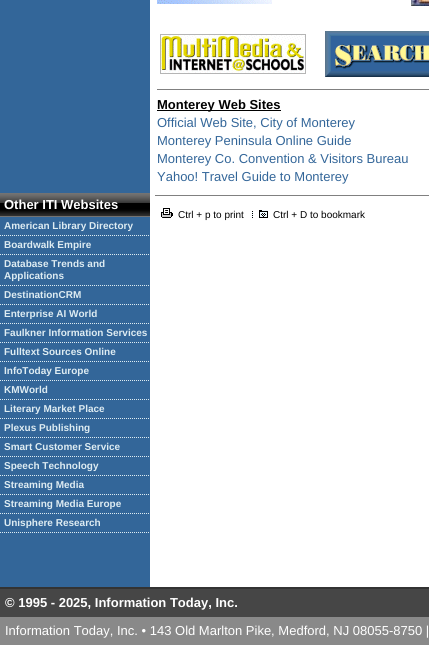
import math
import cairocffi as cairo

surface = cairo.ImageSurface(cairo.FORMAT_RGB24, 429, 645)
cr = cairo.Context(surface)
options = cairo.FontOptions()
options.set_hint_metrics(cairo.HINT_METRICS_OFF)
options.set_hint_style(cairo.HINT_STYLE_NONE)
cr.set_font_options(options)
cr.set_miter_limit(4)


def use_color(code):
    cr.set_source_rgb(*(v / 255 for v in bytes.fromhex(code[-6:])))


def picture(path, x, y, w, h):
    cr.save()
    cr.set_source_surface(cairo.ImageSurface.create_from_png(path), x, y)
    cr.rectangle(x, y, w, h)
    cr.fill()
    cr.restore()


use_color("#ffffff")
cr.paint()
picture("img1.png", 157, 0, 115, 4)
picture("img2.png", 411, 0, 18, 6)
picture("img3.png", 160, 34, 146, 40)
picture("img4.png", 325, 31, 104, 46)
use_color("#808080")
cr.rectangle(157, 89, 272, 1)
cr.fill()
use_color("#000000")
cr.rectangle(157, 110, 124, 1)
cr.fill()
cr.select_font_face("Liberation Sans", cairo.FONT_SLANT_NORMAL, cairo.FONT_WEIGHT_BOLD)
cr.set_font_size(13)
cr.move_to(157, 109)
cr.show_text("Monterey Web Sites")
cr.select_font_face("Liberation Sans")
use_color("#336699")
cr.move_to(157, 127)
cr.show_text("Official Web Site, City of Monterey")
cr.move_to(157, 145)
cr.show_text("Monterey Peninsula Online Guide")
cr.move_to(157, 163)
cr.show_text("Monterey Co. Convention & Visitors Bureau")
cr.move_to(157, 181)
cr.show_text("Yahoo! Travel Guide to Monterey")
use_color("#808080")
cr.rectangle(155, 195, 274, 1)
cr.fill()
picture("img5.png", 161, 208, 12, 10)
cr.set_font_size(10)
use_color("#000000")
cr.move_to(178, 218)
cr.show_text("Ctrl + p to print")
picture("img6.png", 252, 211, 1, 7)
picture("img7.png", 259, 210, 9, 8)
cr.move_to(273, 218)
cr.show_text("Ctrl + D to bookmark")
use_color("#336699")
cr.rectangle(0, 0, 150, 587)
cr.fill()
picture("img8.png", 0, 193, 150, 24)
cr.select_font_face("Liberation Sans", cairo.FONT_SLANT_NORMAL, cairo.FONT_WEIGHT_BOLD)
cr.set_font_size(13)
use_color("#ffffff")
cr.move_to(4, 209)
cr.show_text("Other ITI Websites")
cr.new_path()
cr.move_to(0, 235.5)
cr.line_to(150, 235.5)
use_color("#deecf2")
cr.set_line_width(1)
cr.set_dash([1, 1])
cr.stroke()
cr.set_font_size(10)
cr.move_to(4, 229)
cr.show_text("American Library Directory")
cr.new_path()
cr.move_to(0, 254.5)
cr.line_to(150, 254.5)
cr.stroke()
cr.move_to(4, 248)
cr.show_text("Boardwalk Empire")
cr.new_path()
cr.move_to(0, 285.5)
cr.line_to(150, 285.5)
cr.stroke()
cr.move_to(4, 267)
cr.show_text("Database Trends and")
cr.move_to(4, 279)
cr.show_text("Applications")
cr.new_path()
cr.move_to(0, 304.5)
cr.line_to(150, 304.5)
cr.stroke()
cr.move_to(4, 298)
cr.show_text("DestinationCRM")
cr.new_path()
cr.move_to(0, 323.5)
cr.line_to(150, 323.5)
cr.stroke()
cr.move_to(4, 317)
cr.show_text("Enterprise AI World")
cr.new_path()
cr.move_to(0, 342.5)
cr.line_to(150, 342.5)
cr.stroke()
cr.move_to(4, 336)
cr.show_text("Faulkner Information Services")
cr.new_path()
cr.move_to(0, 361.5)
cr.line_to(150, 361.5)
cr.stroke()
cr.move_to(4, 355)
cr.show_text("Fulltext Sources Online")
cr.new_path()
cr.move_to(0, 380.5)
cr.line_to(150, 380.5)
cr.stroke()
cr.move_to(4, 374)
cr.show_text("InfoToday Europe")
cr.new_path()
cr.move_to(0, 399.5)
cr.line_to(150, 399.5)
cr.stroke()
cr.move_to(4, 393)
cr.show_text("KMWorld")
cr.new_path()
cr.move_to(0, 418.5)
cr.line_to(150, 418.5)
cr.stroke()
cr.move_to(4, 412)
cr.show_text("Literary Market Place")
cr.new_path()
cr.move_to(0, 437.5)
cr.line_to(150, 437.5)
cr.stroke()
cr.move_to(4, 431)
cr.show_text("Plexus Publishing")
cr.new_path()
cr.move_to(0, 456.5)
cr.line_to(150, 456.5)
cr.stroke()
cr.move_to(4, 450)
cr.show_text("Smart Customer Service")
cr.new_path()
cr.move_to(0, 475.5)
cr.line_to(150, 475.5)
cr.stroke()
cr.move_to(4, 469)
cr.show_text("Speech Technology")
cr.new_path()
cr.move_to(0, 494.5)
cr.line_to(150, 494.5)
cr.stroke()
cr.move_to(4, 488)
cr.show_text("Streaming Media")
cr.new_path()
cr.move_to(0, 513.5)
cr.line_to(150, 513.5)
cr.stroke()
cr.move_to(4, 507)
cr.show_text("Streaming Media Europe")
cr.new_path()
cr.move_to(0, 532.5)
cr.line_to(150, 532.5)
cr.stroke()
cr.move_to(4, 526)
cr.show_text("Unisphere Research")
use_color("#333333")
cr.rectangle(0, 587, 429, 2)
cr.fill()
use_color("#464646")
cr.rectangle(0, 589, 429, 28)
cr.fill()
cr.set_font_size(13)
use_color("#ffffff")
cr.move_to(5, 607)
cr.show_text("© 1995 - 2025, Information Today, Inc.")
use_color("#898989")
cr.rectangle(0, 617, 429, 28)
cr.fill()
cr.select_font_face("Liberation Sans")
use_color("#ffffff")
cr.move_to(5, 635)
cr.show_text("Information Today, Inc. • 143 Old Marlton Pike, Medford, NJ 08055-8750 |")
surface.write_to_png("result.png")
